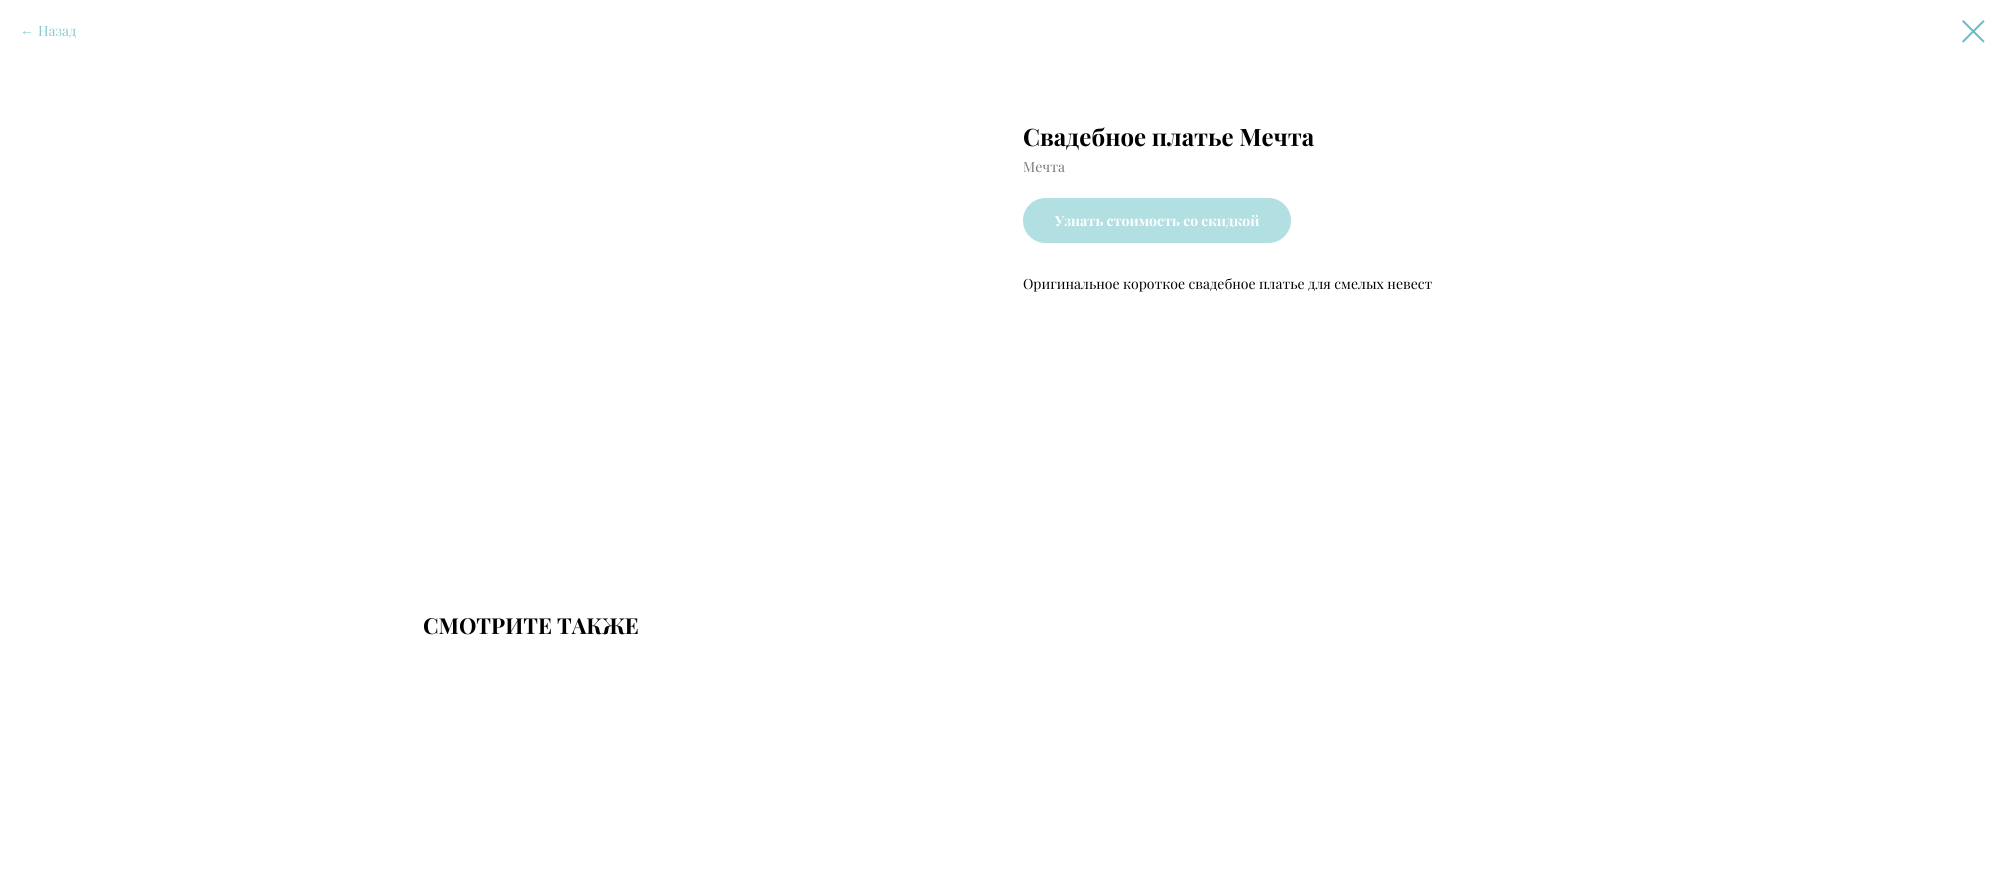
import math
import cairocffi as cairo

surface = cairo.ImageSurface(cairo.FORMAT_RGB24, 2005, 890)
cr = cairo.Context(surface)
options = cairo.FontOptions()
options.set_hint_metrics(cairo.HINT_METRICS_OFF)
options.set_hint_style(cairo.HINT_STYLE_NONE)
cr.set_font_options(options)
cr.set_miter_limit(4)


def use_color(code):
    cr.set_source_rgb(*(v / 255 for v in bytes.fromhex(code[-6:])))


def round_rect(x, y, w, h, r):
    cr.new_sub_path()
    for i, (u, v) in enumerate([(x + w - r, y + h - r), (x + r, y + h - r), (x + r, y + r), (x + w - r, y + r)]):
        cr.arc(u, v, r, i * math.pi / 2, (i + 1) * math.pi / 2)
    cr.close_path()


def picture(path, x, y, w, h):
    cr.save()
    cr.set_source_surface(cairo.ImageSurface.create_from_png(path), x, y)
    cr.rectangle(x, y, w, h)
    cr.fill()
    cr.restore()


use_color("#ffffff")
cr.paint()
cr.select_font_face("Liberation Sans")
cr.set_font_size(14)
use_color("#84cbcf")
cr.move_to(20, 35)
cr.show_text("←")
cr.select_font_face("Playfair Display")
cr.move_to(38, 36)
cr.show_text("Назад")
picture("img1.png", 1962, 20, 23, 23)
cr.select_font_face("Playfair Display", cairo.FONT_SLANT_NORMAL, cairo.FONT_WEIGHT_BOLD)
cr.set_font_size(24)
use_color("#000000")
cr.move_to(1023, 146)
cr.show_text("Свадебное платье Мечта")
cr.select_font_face("Playfair Display")
cr.set_font_size(14)
use_color("#777777")
cr.move_to(1023, 172)
cr.show_text("Мечта")
use_color("#b2dfe1")
round_rect(1023, 198, 268, 45, 22.5)
cr.fill()
cr.select_font_face("Playfair Display", cairo.FONT_SLANT_NORMAL, cairo.FONT_WEIGHT_BOLD)
use_color("#ffffff")
cr.move_to(1055, 226)
cr.show_text("Узнать стоимость со скидкой")
cr.select_font_face("Playfair Display")
use_color("#000000")
cr.move_to(1023, 289)
cr.show_text("Оригинальное короткое свадебное платье для смелых невест")
cr.select_font_face("Playfair Display", cairo.FONT_SLANT_NORMAL, cairo.FONT_WEIGHT_BOLD)
cr.set_font_size(22)
cr.move_to(423, 634)
cr.show_text("СМОТРИТЕ ТАКЖЕ")
surface.write_to_png("result.png")
